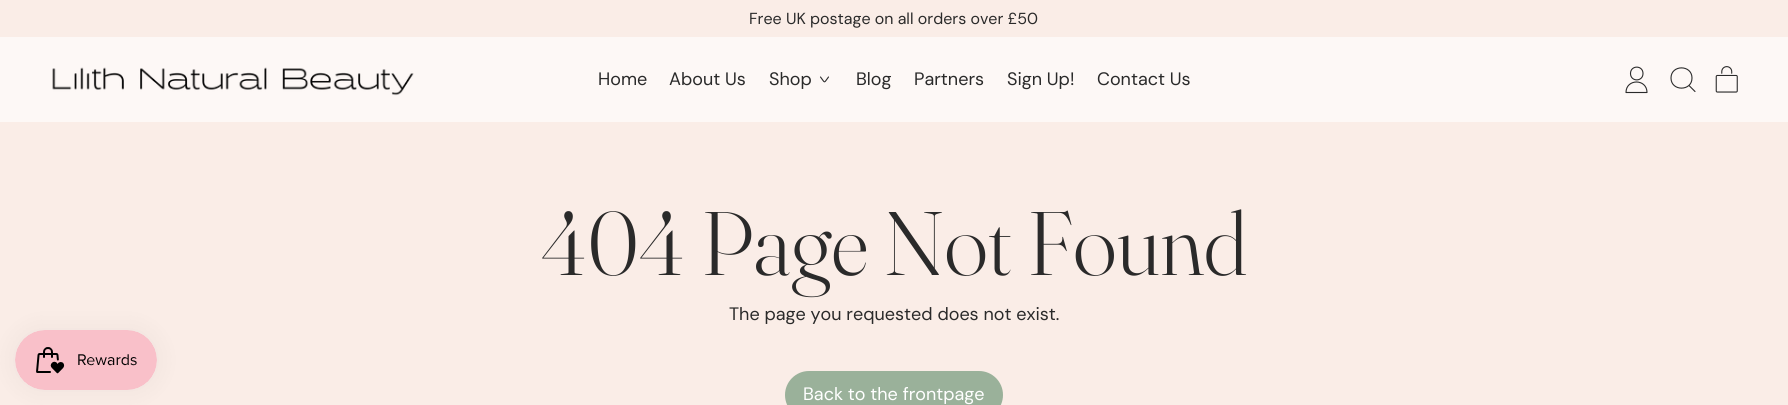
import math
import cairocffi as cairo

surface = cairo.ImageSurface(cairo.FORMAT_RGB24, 1788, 405)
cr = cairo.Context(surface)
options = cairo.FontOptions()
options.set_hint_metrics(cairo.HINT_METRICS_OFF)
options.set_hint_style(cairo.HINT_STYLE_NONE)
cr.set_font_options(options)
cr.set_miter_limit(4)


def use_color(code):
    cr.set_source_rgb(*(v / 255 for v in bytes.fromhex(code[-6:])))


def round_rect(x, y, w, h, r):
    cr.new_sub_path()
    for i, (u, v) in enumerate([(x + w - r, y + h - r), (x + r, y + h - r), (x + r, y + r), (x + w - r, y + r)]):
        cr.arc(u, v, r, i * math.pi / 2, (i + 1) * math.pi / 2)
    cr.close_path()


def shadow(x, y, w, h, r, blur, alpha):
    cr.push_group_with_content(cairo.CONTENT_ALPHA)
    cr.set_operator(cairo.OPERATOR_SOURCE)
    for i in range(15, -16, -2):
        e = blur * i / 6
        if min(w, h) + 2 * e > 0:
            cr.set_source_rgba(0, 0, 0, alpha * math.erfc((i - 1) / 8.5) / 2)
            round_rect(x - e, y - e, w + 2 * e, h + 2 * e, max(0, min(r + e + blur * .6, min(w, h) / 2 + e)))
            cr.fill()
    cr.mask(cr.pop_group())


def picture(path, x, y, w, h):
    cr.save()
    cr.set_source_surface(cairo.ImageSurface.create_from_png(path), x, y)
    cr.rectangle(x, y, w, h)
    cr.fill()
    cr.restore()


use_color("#faede7")
cr.paint()
cr.select_font_face("DM Sans")
cr.set_font_size(16)
use_color("#2a2a2a")
cr.move_to(749, 24)
cr.show_text("Free UK postage on all orders over £50")
use_color("#fdf8f6")
cr.rectangle(0, 37, 1788, 85)
cr.fill()
picture("img1.png", 52, 67, 362, 29)
cr.select_font_face("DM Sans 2")
cr.set_font_size(18)
use_color("#2a2a2a")
cr.move_to(598, 85)
cr.show_text("Home")
cr.move_to(669, 85)
cr.show_text("About Us")
cr.move_to(769, 85)
cr.show_text("Shop")
cr.new_path()
cr.move_to(820.5, 77)
cr.curve_to(825.5, 83.5, 823.5, 83.5, 828.5, 77)
cr.set_line_width(1.1)
cr.set_line_cap(cairo.LINE_CAP_ROUND)
cr.set_line_join(cairo.LINE_JOIN_ROUND)
cr.stroke()
cr.move_to(856, 85)
cr.show_text("Blog")
cr.move_to(914, 85)
cr.show_text("Partners")
cr.move_to(1007, 85)
cr.show_text("Sign Up!")
cr.move_to(1097, 85)
cr.show_text("Contact Us")
cr.new_path()
cr.move_to(1630.5, 73.5)
cr.curve_to(1630.5, 82, 1643, 82, 1643, 73.5)
cr.curve_to(1643, 65, 1630.5, 65, 1630.5, 73.5)
cr.close_path()
cr.move_to(1626, 92.5)
cr.curve_to(1626, 78.5, 1647, 78.5, 1647, 92.5)
cr.close_path()
cr.stroke()
cr.new_path()
cr.move_to(1671, 78)
cr.curve_to(1671, 91.5, 1692, 91.5, 1692, 78)
cr.curve_to(1692, 64.5, 1671, 64.5, 1671, 78)
cr.close_path()
cr.move_to(1695, 91.5)
cr.line_to(1689, 85.5)
cr.stroke()
picture("img2.png", 1715, 66, 23, 27)
use_color("#000000")
shadow(15, 330, 142, 60, 30, 12.5, 0.05)
picture("img3.png", 15, 330, 142, 60)
cr.select_font_face("Fraunces Light")
cr.set_font_size(90)
use_color("#2a2a2a")
cr.move_to(541, 275)
cr.show_text("404 Page Not Found")
cr.select_font_face("DM Sans 2")
cr.set_font_size(18)
cr.move_to(729, 320)
cr.show_text("The page you requested does not exist.")
use_color("#9ab19a")
round_rect(785, 371, 218, 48, 24)
cr.fill()
use_color("#ffffff")
cr.move_to(803, 400)
cr.show_text("Back to the frontpage")
surface.write_to_png("result.png")
